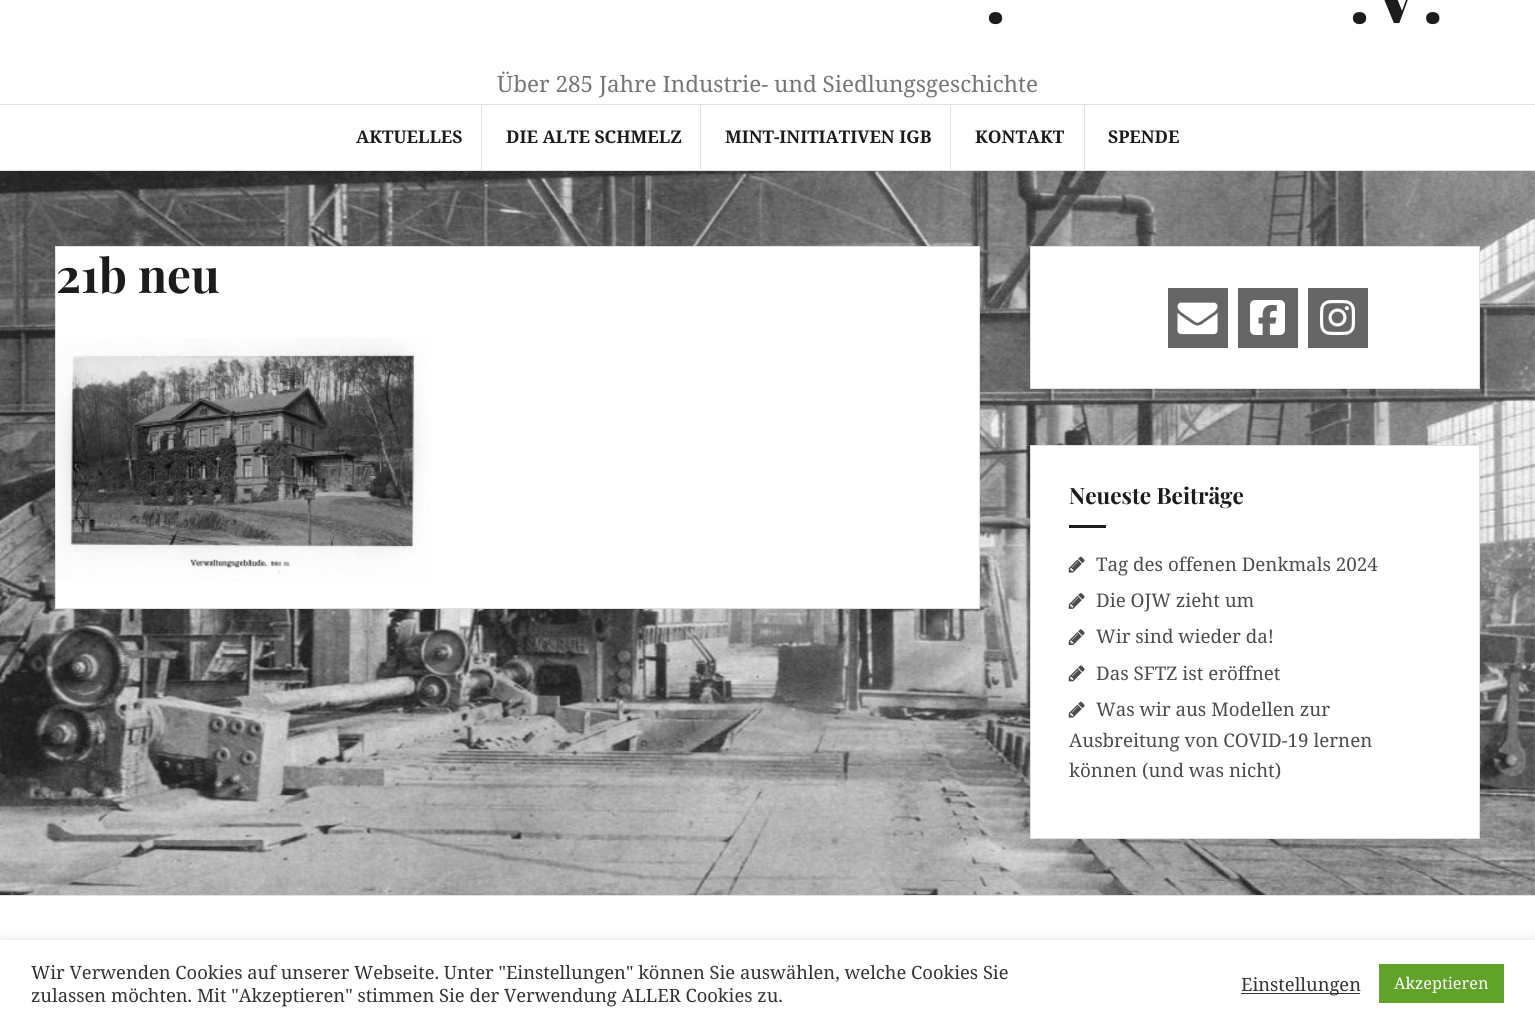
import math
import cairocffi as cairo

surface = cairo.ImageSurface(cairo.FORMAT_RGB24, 1535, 1026)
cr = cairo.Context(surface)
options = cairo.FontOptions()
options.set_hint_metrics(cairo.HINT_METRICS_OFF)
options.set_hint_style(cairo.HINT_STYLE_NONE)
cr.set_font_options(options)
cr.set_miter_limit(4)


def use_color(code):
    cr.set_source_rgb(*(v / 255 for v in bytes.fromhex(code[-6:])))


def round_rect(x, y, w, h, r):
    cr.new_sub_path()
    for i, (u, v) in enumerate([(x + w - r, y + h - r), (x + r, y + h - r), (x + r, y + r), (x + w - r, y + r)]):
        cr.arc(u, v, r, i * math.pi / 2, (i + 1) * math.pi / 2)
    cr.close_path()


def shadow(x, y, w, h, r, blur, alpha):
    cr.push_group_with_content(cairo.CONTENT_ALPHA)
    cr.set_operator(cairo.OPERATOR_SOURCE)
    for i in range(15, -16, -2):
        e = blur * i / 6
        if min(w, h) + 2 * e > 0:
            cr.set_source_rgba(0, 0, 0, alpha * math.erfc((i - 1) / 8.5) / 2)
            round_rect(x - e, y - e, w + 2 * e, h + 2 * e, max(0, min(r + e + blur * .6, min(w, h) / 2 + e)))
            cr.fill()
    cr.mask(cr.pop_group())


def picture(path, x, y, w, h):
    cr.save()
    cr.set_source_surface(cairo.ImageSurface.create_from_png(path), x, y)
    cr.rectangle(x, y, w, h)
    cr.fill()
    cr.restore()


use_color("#ffffff")
cr.paint()
picture("img1.png", 0, 171, 1535, 724)
cr.select_font_face("Playfair Display", cairo.FONT_SLANT_NORMAL, cairo.FONT_WEIGHT_BOLD)
cr.set_font_size(78)
use_color("#1c1c1c")
cr.move_to(985, 23)
cr.show_text(".")
cr.move_to(1349, 23)
cr.show_text(".V.")
cr.select_font_face("Noto Serif")
cr.set_font_size(22.5)
use_color("#767676")
cr.move_to(497, 92)
cr.show_text("Über 285 Jahre Industrie- und Siedlungsgeschichte")
use_color("#e0e0e0")
cr.rectangle(0, 104, 1535, 1)
cr.fill()
cr.rectangle(0, 170, 1535, 1)
cr.fill()
cr.rectangle(481, 105, 1, 65)
cr.fill()
cr.select_font_face("Noto Serif", cairo.FONT_SLANT_NORMAL, cairo.FONT_WEIGHT_BOLD)
cr.set_font_size(17.5)
use_color("#1c1c1c")
cr.move_to(356, 143)
cr.show_text("AKTUELLES")
use_color("#e0e0e0")
cr.rectangle(700, 105, 1, 65)
cr.fill()
use_color("#1c1c1c")
cr.move_to(506, 143)
cr.show_text("DIE ALTE SCHMELZ")
use_color("#e0e0e0")
cr.rectangle(950, 105, 1, 65)
cr.fill()
use_color("#1c1c1c")
cr.move_to(725, 143)
cr.show_text("MINT-INITIATIVEN IGB")
use_color("#e0e0e0")
cr.rectangle(1084, 105, 1, 65)
cr.fill()
use_color("#1c1c1c")
cr.move_to(975, 143)
cr.show_text("KONTAKT")
cr.move_to(1108, 143)
cr.show_text("SPENDE")
use_color("#ffffff")
cr.rectangle(55.5, 246.5, 924, 362)
cr.fill_preserve()
use_color("#e0e0e0")
cr.set_line_width(1)
cr.stroke()
cr.select_font_face("Playfair Display", cairo.FONT_SLANT_NORMAL, cairo.FONT_WEIGHT_BOLD)
cr.set_font_size(47.5)
use_color("#1c1c1c")
cr.move_to(56, 293)
cr.show_text("21b neu")
picture("img2.png", 56, 337, 375, 245)
use_color("#ffffff")
cr.rectangle(1030.5, 246.5, 449, 142)
cr.fill_preserve()
use_color("#e0e0e0")
cr.stroke()
use_color("#666666")
cr.rectangle(1168, 288, 60, 60)
cr.fill()
picture("img3.png", 1177, 302, 41, 33)
cr.rectangle(1238, 288, 60, 60)
cr.fill()
picture("img4.png", 1250, 300, 35, 35)
cr.rectangle(1308, 288, 60, 60)
cr.fill()
picture("img5.png", 1320, 300, 35, 35)
use_color("#ffffff")
cr.rectangle(1030.5, 445.5, 449, 393)
cr.fill_preserve()
use_color("#e0e0e0")
cr.stroke()
cr.set_font_size(22.5)
use_color("#1c1c1c")
cr.move_to(1069, 504)
cr.show_text("Neueste Beiträge")
cr.rectangle(1069, 525, 37, 3)
cr.fill()
picture("img6.png", 1068, 556, 17, 17)
cr.select_font_face("Noto Serif")
cr.set_font_size(18.75)
use_color("#4c4c4c")
cr.move_to(1096, 571)
cr.show_text("Tag des offenen Denkmals 2024")
picture("img7.png", 1068, 593, 17, 16)
cr.move_to(1096, 607)
cr.show_text("Die OJW zieht um")
picture("img8.png", 1068, 629, 17, 17)
cr.move_to(1096, 643)
cr.show_text("Wir sind wieder da!")
picture("img9.png", 1068, 665, 17, 17)
cr.move_to(1096, 680)
cr.show_text("Das SFTZ ist eröffnet")
picture("img6.png", 1068, 701, 17, 17)
cr.move_to(1096, 716)
cr.show_text("Was wir aus Modellen zur")
cr.move_to(1069, 747)
cr.show_text("Ausbreitung von COVID-19 lernen")
cr.move_to(1069, 777)
cr.show_text("können (und was nicht)")
use_color("#e0e0e0")
cr.rectangle(0, 895, 1535, 1)
cr.fill()
use_color("#acabab")
shadow(0, 939, 1535, 86, 0, 6, 0.3)
use_color("#ffffff")
cr.rectangle(0, 940, 1535, 86)
cr.fill()
cr.set_font_size(18.33)
use_color("#333333")
cr.move_to(31, 979)
cr.show_text("Wir Verwenden Cookies auf unserer Webseite. Unter \"Einstellungen\" können Sie auswählen, welche Cookies Sie")
cr.move_to(31, 1002)
cr.show_text("zulassen möchten. Mit \"Akzeptieren\" stimmen Sie der Verwendung ALLER Cookies zu.")
cr.rectangle(1241, 993, 119, 1)
cr.fill()
cr.move_to(1241, 991)
cr.show_text("Einstellungen")
use_color("#61a229")
cr.rectangle(1379, 964, 125, 39)
cr.fill()
cr.set_font_size(16.25)
use_color("#ffffff")
cr.move_to(1394, 989)
cr.show_text("Akzeptieren")
surface.write_to_png("result.png")
